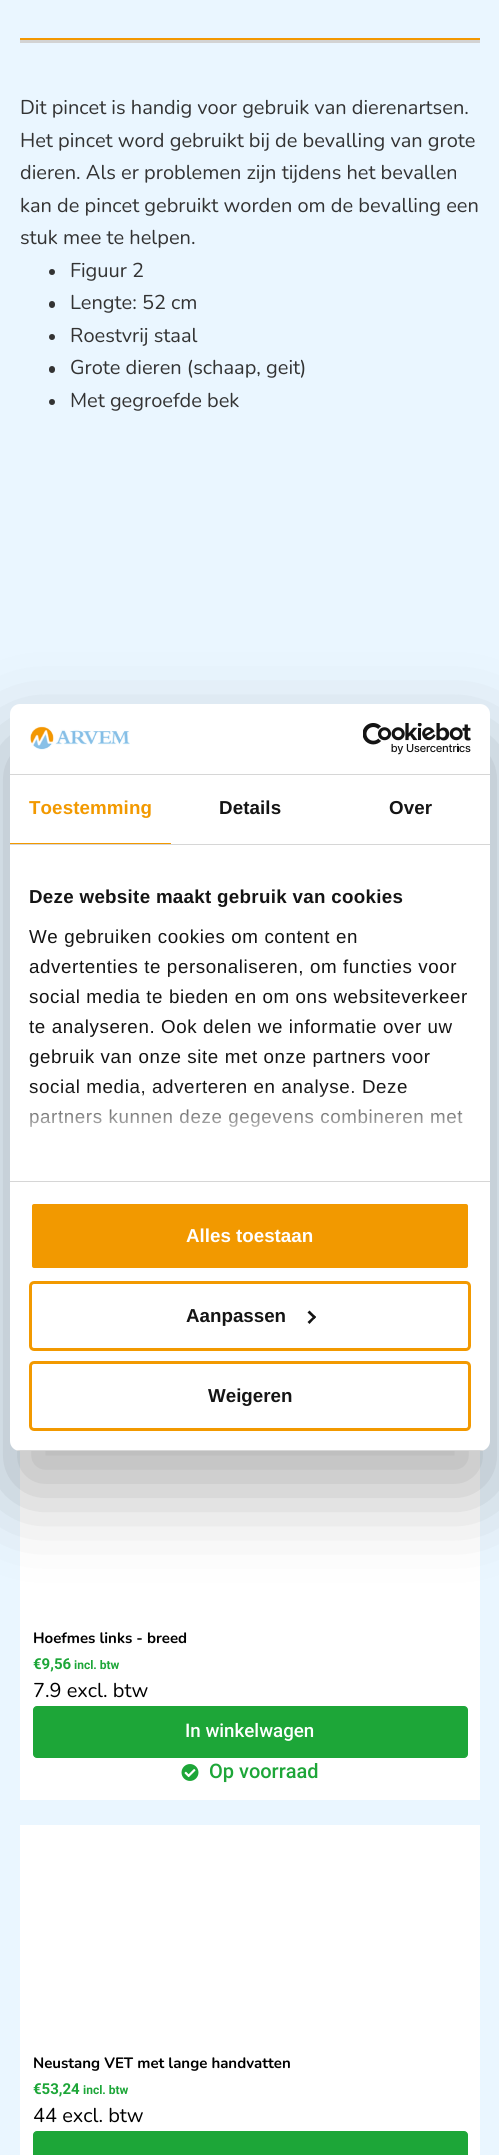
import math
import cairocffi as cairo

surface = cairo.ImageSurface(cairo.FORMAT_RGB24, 499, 2155)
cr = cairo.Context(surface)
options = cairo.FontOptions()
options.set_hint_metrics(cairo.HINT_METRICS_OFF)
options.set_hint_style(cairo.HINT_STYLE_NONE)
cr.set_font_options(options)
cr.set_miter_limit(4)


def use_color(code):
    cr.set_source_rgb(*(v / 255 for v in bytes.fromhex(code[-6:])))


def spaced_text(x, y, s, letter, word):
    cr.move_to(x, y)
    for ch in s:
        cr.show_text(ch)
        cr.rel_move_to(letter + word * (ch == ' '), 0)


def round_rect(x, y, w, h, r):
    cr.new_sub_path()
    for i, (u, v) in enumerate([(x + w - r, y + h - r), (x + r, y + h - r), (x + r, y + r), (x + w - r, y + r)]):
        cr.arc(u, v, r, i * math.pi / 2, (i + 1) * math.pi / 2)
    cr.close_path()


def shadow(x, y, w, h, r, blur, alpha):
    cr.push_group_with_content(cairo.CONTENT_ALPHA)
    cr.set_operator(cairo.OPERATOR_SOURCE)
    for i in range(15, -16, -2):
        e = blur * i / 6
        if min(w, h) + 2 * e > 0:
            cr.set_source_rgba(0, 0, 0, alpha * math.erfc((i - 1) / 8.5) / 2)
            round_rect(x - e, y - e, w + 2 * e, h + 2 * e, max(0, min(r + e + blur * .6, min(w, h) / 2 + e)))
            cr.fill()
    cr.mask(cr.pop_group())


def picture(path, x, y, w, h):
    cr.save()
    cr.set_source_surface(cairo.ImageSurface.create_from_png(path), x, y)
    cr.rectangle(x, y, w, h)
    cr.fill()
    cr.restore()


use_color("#eaf6ff")
cr.paint()
use_color("#f39801")
cr.rectangle(20, 38, 460, 2)
cr.fill()
use_color("#d3d3d3")
cr.rectangle(20, 40, 460, 3)
cr.fill()
cr.select_font_face("Nunito")
cr.set_font_size(20)
use_color("#333333")
cr.move_to(20, 114)
cr.show_text("Dit pincet is handig voor gebruik van dierenartsen.")
cr.move_to(20, 147)
cr.show_text("Het pincet word gebruikt bij de bevalling van grote")
cr.move_to(20, 179)
cr.show_text("dieren. Als er problemen zijn tijdens het bevallen")
cr.move_to(20, 212)
cr.show_text("kan de pincet gebruikt worden om de bevalling een")
cr.move_to(20, 244)
cr.show_text("stuk mee te helpen.")
cr.new_path()
cr.arc(52, 272, 3, 0, 2 * math.pi)
cr.fill()
cr.move_to(70, 277)
cr.show_text("Figuur 2")
round_rect(49, 301, 6, 7, 3)
cr.fill()
cr.move_to(70, 309)
cr.show_text("Lengte: 52 cm")
cr.new_path()
cr.arc(52, 337, 3, 0, 2 * math.pi)
cr.fill()
cr.move_to(70, 342)
cr.show_text("Roestvrij staal")
round_rect(49, 366, 6, 7, 3)
cr.fill()
cr.move_to(70, 374)
cr.show_text("Grote dieren (schaap, geit)")
cr.new_path()
cr.arc(52, 402, 3, 0, 2 * math.pi)
cr.fill()
cr.move_to(70, 407)
cr.show_text("Met gegroefde bek")
use_color("#ffffff")
cr.rectangle(20, 1451, 460, 349)
cr.fill()
cr.select_font_face("Nunito", cairo.FONT_SLANT_NORMAL, cairo.FONT_WEIGHT_BOLD)
cr.set_font_size(15)
use_color("#000000")
cr.move_to(33, 1643)
cr.show_text("Hoefmes links - breed")
cr.select_font_face("Roboto", cairo.FONT_SLANT_NORMAL, cairo.FONT_WEIGHT_BOLD)
use_color("#1da638")
cr.move_to(33, 1669)
cr.show_text("€9,56")
cr.set_font_size(12)
cr.move_to(74, 1669)
cr.show_text("incl. btw")
cr.select_font_face("Nunito")
cr.set_font_size(20)
use_color("#000000")
cr.move_to(33, 1697)
cr.show_text("7.9 excl. btw")
use_color("#1da638")
round_rect(33.5, 1706.5, 434, 51, 3.5)
cr.fill_preserve()
cr.set_line_width(1)
cr.stroke()
cr.select_font_face("Roboto Medium")
cr.set_font_size(18.75)
use_color("#ffffff")
cr.move_to(185, 1737)
cr.show_text("In winkelwagen")
picture("img1.png", 181, 1764, 18, 17)
cr.set_font_size(20)
use_color("#1da638")
cr.move_to(209, 1778)
cr.show_text("Op voorraad")
use_color("#ffffff")
cr.rectangle(20, 1825, 460, 330)
cr.fill()
cr.select_font_face("Nunito", cairo.FONT_SLANT_NORMAL, cairo.FONT_WEIGHT_BOLD)
cr.set_font_size(15)
use_color("#000000")
cr.move_to(33, 2068)
cr.show_text("Neustang VET met lange handvatten")
cr.select_font_face("Roboto", cairo.FONT_SLANT_NORMAL, cairo.FONT_WEIGHT_BOLD)
use_color("#1da638")
cr.move_to(33, 2094)
cr.show_text("€53,24")
cr.set_font_size(12)
cr.move_to(83, 2094)
cr.show_text("incl. btw")
cr.select_font_face("Nunito")
cr.set_font_size(20)
use_color("#000000")
cr.move_to(33, 2122)
cr.show_text("44 excl. btw")
use_color("#1da638")
round_rect(33.5, 2131.5, 434, 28, 3.5)
cr.fill_preserve()
cr.stroke()
use_color("#000000")
shadow(10, 744, 480, 747, 10, 42.5, 0.3)
use_color("#ffffff")
round_rect(10, 704, 480, 747, 10)
cr.fill()
use_color("#d6d6d6")
cr.rectangle(10, 774, 480, 1)
cr.fill()
picture("img2.png", 30, 726, 100, 24)
picture("img3.png", 363, 723, 108, 32)
cr.rectangle(10, 844, 480, 1)
cr.fill()
use_color("#f29900")
cr.rectangle(10, 843, 161, 1)
cr.fill()
cr.select_font_face("Liberation Sans", cairo.FONT_SLANT_NORMAL, cairo.FONT_WEIGHT_BOLD)
cr.set_font_size(18.75)
spaced_text(29, 814, "Toestemming", 0.1, 0)
use_color("#141414")
spaced_text(219, 814, "Details", 0.1, 0)
spaced_text(389, 814, "Over", 0.1, 0)
use_color("#d6d6d6")
cr.rectangle(10, 1181, 480, 1)
cr.fill()
use_color("#141414")
spaced_text(29, 903, "Deze website maakt gebruik van cookies", 0.3, 0)
cr.select_font_face("Liberation Sans")
spaced_text(29, 943, "We gebruiken cookies om content en", 0.6, 0)
spaced_text(29, 973, "advertenties te personaliseren, om functies voor", 0.6, 0)
spaced_text(29, 1003, "social media te bieden en om ons websiteverkeer", 0.6, 0)
spaced_text(29, 1033, "te analyseren. Ook delen we informatie over uw", 0.6, 0)
spaced_text(29, 1063, "gebruik van onze site met onze partners voor", 0.6, 0)
spaced_text(29, 1093, "social media, adverteren en analyse. Deze", 0.6, 0)
spaced_text(29, 1123, "partners kunnen deze gegevens combineren met", 0.6, 0)
gradient = cairo.LinearGradient(242, 1181, 242, 1088)
gradient.add_color_stop_rgba(0, 1, 1, 1, 1)
gradient.add_color_stop_rgba(0.5, 1, 1, 1, 0.8)
gradient.add_color_stop_rgba(1, 1, 1, 1, 0)
cr.set_source(gradient)
cr.rectangle(29, 1089, 435, 38)
cr.fill()
cr.save()
round_rect(10, 704, 480, 747, 10)
cr.clip()
use_color("#d6d6d6")
cr.rectangle(10, 1450, 480, 1)
cr.fill()
cr.restore()
use_color("#f29900")
round_rect(30.5, 1202.5, 439, 67, 3.5)
cr.fill_preserve()
use_color("#ffffff")
cr.set_line_width(3)
cr.stroke()
cr.select_font_face("Liberation Sans", cairo.FONT_SLANT_NORMAL, cairo.FONT_WEIGHT_BOLD)
cr.move_to(186, 1242)
cr.show_text("Alles toestaan")
round_rect(30.5, 1282.5, 439, 67, 3.5)
use_color("#f29900")
cr.stroke()
use_color("#141414")
cr.move_to(186, 1322)
cr.show_text("Aanpassen")
cr.new_path()
cr.move_to(309.5, 1310.5)
cr.line_to(316, 1317)
cr.line_to(314.5, 1319)
cr.line_to(307.5, 1312.5)
cr.close_path()
cr.fill()
cr.new_path()
cr.move_to(314.5, 1315.5)
cr.line_to(316, 1317)
cr.line_to(309.5, 1324)
cr.line_to(307.5, 1322)
cr.close_path()
cr.fill()
round_rect(30.5, 1362.5, 439, 67, 3.5)
use_color("#f29900")
cr.stroke()
use_color("#141414")
cr.move_to(208, 1402)
cr.show_text("Weigeren")
surface.write_to_png("result.png")
